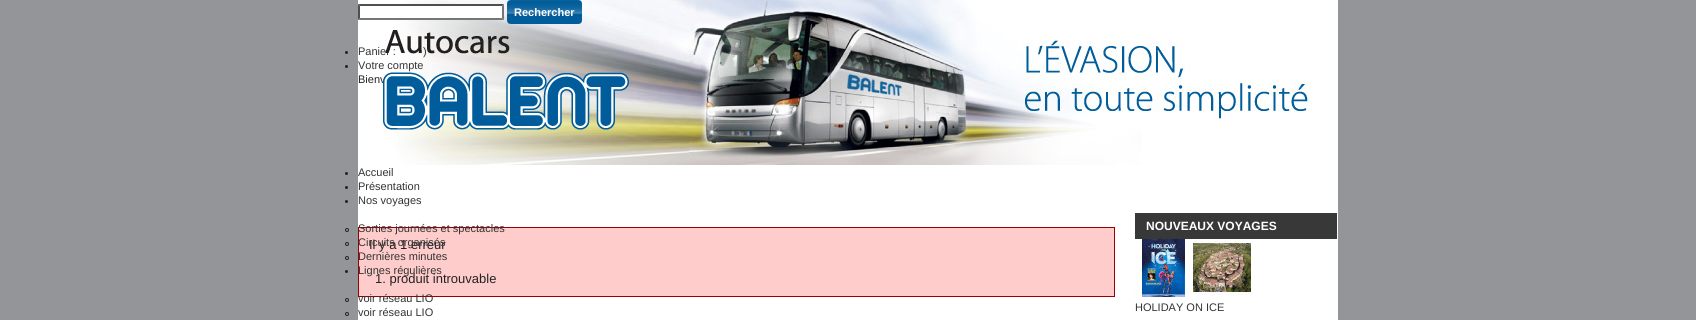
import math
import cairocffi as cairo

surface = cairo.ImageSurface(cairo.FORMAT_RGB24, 1696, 320)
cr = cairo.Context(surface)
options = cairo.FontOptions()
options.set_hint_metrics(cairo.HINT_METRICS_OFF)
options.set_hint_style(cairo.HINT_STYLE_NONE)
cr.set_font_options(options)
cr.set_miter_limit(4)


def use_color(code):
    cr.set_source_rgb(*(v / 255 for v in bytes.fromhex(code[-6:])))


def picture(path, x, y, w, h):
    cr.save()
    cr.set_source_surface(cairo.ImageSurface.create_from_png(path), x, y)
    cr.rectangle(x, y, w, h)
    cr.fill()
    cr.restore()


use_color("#939598")
cr.paint()
use_color("#ffffff")
cr.rectangle(358, 0, 980, 320)
cr.fill()
picture("img1.png", 394, 0, 916, 165)
cr.rectangle(402, 4, 102, 16)
cr.fill()
use_color("#4f4f4f")
cr.new_path()
cr.move_to(358, 4)
cr.line_to(504, 4)
cr.line_to(502, 6)
cr.line_to(360, 6)
cr.close_path()
cr.fill()
use_color("#767676")
cr.new_path()
cr.move_to(504, 4)
cr.line_to(504, 20)
cr.line_to(502, 18)
cr.line_to(502, 6)
cr.close_path()
cr.fill()
cr.new_path()
cr.move_to(504, 20)
cr.line_to(358, 20)
cr.line_to(360, 18)
cr.line_to(502, 18)
cr.close_path()
cr.fill()
use_color("#4f4f4f")
cr.new_path()
cr.move_to(358, 20)
cr.line_to(358, 4)
cr.line_to(360, 6)
cr.line_to(360, 18)
cr.close_path()
cr.fill()
picture("img2.png", 507, 0, 75, 24)
cr.select_font_face("Liberation Sans", cairo.FONT_SLANT_NORMAL, cairo.FONT_WEIGHT_BOLD)
cr.set_font_size(11)
use_color("#ffffff")
cr.move_to(514, 16)
cr.show_text("Rechercher")
use_color("#222222")
cr.new_path()
cr.arc(346.5, 52.5, 1.5, 0, 2 * math.pi)
cr.fill()
cr.select_font_face("Liberation Sans")
use_color("#333333")
cr.move_to(358, 55)
cr.show_text("Panier :")
cr.move_to(423, 55)
cr.show_text(")")
use_color("#222222")
cr.new_path()
cr.arc(346.5, 66.5, 1.5, 0, 2 * math.pi)
cr.fill()
use_color("#333333")
cr.move_to(358, 69)
cr.show_text("Votre compte")
use_color("#222222")
cr.move_to(358, 83)
cr.show_text("Bienv")
picture("img3.png", 383, 30, 246, 100)
cr.arc(346.5, 173.5, 1.5, 0, 2 * math.pi)
cr.fill()
use_color("#333333")
cr.move_to(358, 176)
cr.show_text("Accueil")
use_color("#222222")
cr.new_path()
cr.arc(346.5, 187.5, 1.5, 0, 2 * math.pi)
cr.fill()
use_color("#333333")
cr.move_to(358, 190)
cr.show_text("Présentation")
use_color("#222222")
cr.new_path()
cr.arc(346.5, 201.5, 1.5, 0, 2 * math.pi)
cr.fill()
use_color("#333333")
cr.move_to(358, 204)
cr.show_text("Nos voyages")
cr.new_path()
cr.arc(347, 230, 1.5, 0, 2 * math.pi)
use_color("#222222")
cr.set_line_width(1)
cr.stroke()
use_color("#ffcccc")
cr.rectangle(358.5, 227.5, 756, 69)
cr.fill_preserve()
use_color("#990000")
cr.stroke()
use_color("#333333")
cr.move_to(358, 232)
cr.show_text("Sorties journées et spectacles")
cr.new_path()
cr.arc(347, 244, 1.5, 0, 2 * math.pi)
use_color("#222222")
cr.stroke()
cr.set_font_size(13)
cr.move_to(369, 249)
cr.show_text("Il y a 1 erreur")
cr.set_font_size(11)
use_color("#333333")
cr.move_to(358, 246)
cr.show_text("Circuits organisés")
cr.new_path()
cr.arc(347, 258, 1.5, 0, 2 * math.pi)
use_color("#222222")
cr.stroke()
use_color("#333333")
cr.move_to(358, 260)
cr.show_text("Dernières minutes")
use_color("#222222")
cr.new_path()
cr.arc(346.5, 271.5, 1.5, 0, 2 * math.pi)
cr.fill()
use_color("#333333")
cr.move_to(358, 274)
cr.show_text("Lignes régulières")
cr.new_path()
cr.arc(347, 300, 1.5, 0, 2 * math.pi)
use_color("#222222")
cr.stroke()
use_color("#333333")
cr.move_to(358, 302)
cr.show_text("voir réseau LIO")
cr.new_path()
cr.arc(347, 314, 1.5, 0, 2 * math.pi)
use_color("#222222")
cr.stroke()
use_color("#333333")
cr.move_to(358, 316)
cr.show_text("voir réseau LIO")
cr.set_font_size(13)
use_color("#222222")
cr.move_to(375, 283)
cr.show_text("1. produit introuvable")
use_color("#383838")
cr.rectangle(1135, 213, 202, 26)
cr.fill()
cr.select_font_face("Liberation Sans", cairo.FONT_SLANT_NORMAL, cairo.FONT_WEIGHT_BOLD)
cr.set_font_size(12)
use_color("#ffffff")
cr.move_to(1146, 230)
cr.show_text("NOUVEAUX VOYAGES")
picture("img4.png", 1135, 239, 56, 58)
picture("img5.png", 1193, 239, 58, 56)
cr.select_font_face("Liberation Sans")
cr.set_font_size(11)
use_color("#333333")
cr.move_to(1135, 311)
cr.show_text("HOLIDAY ON ICE")
surface.write_to_png("result.png")
